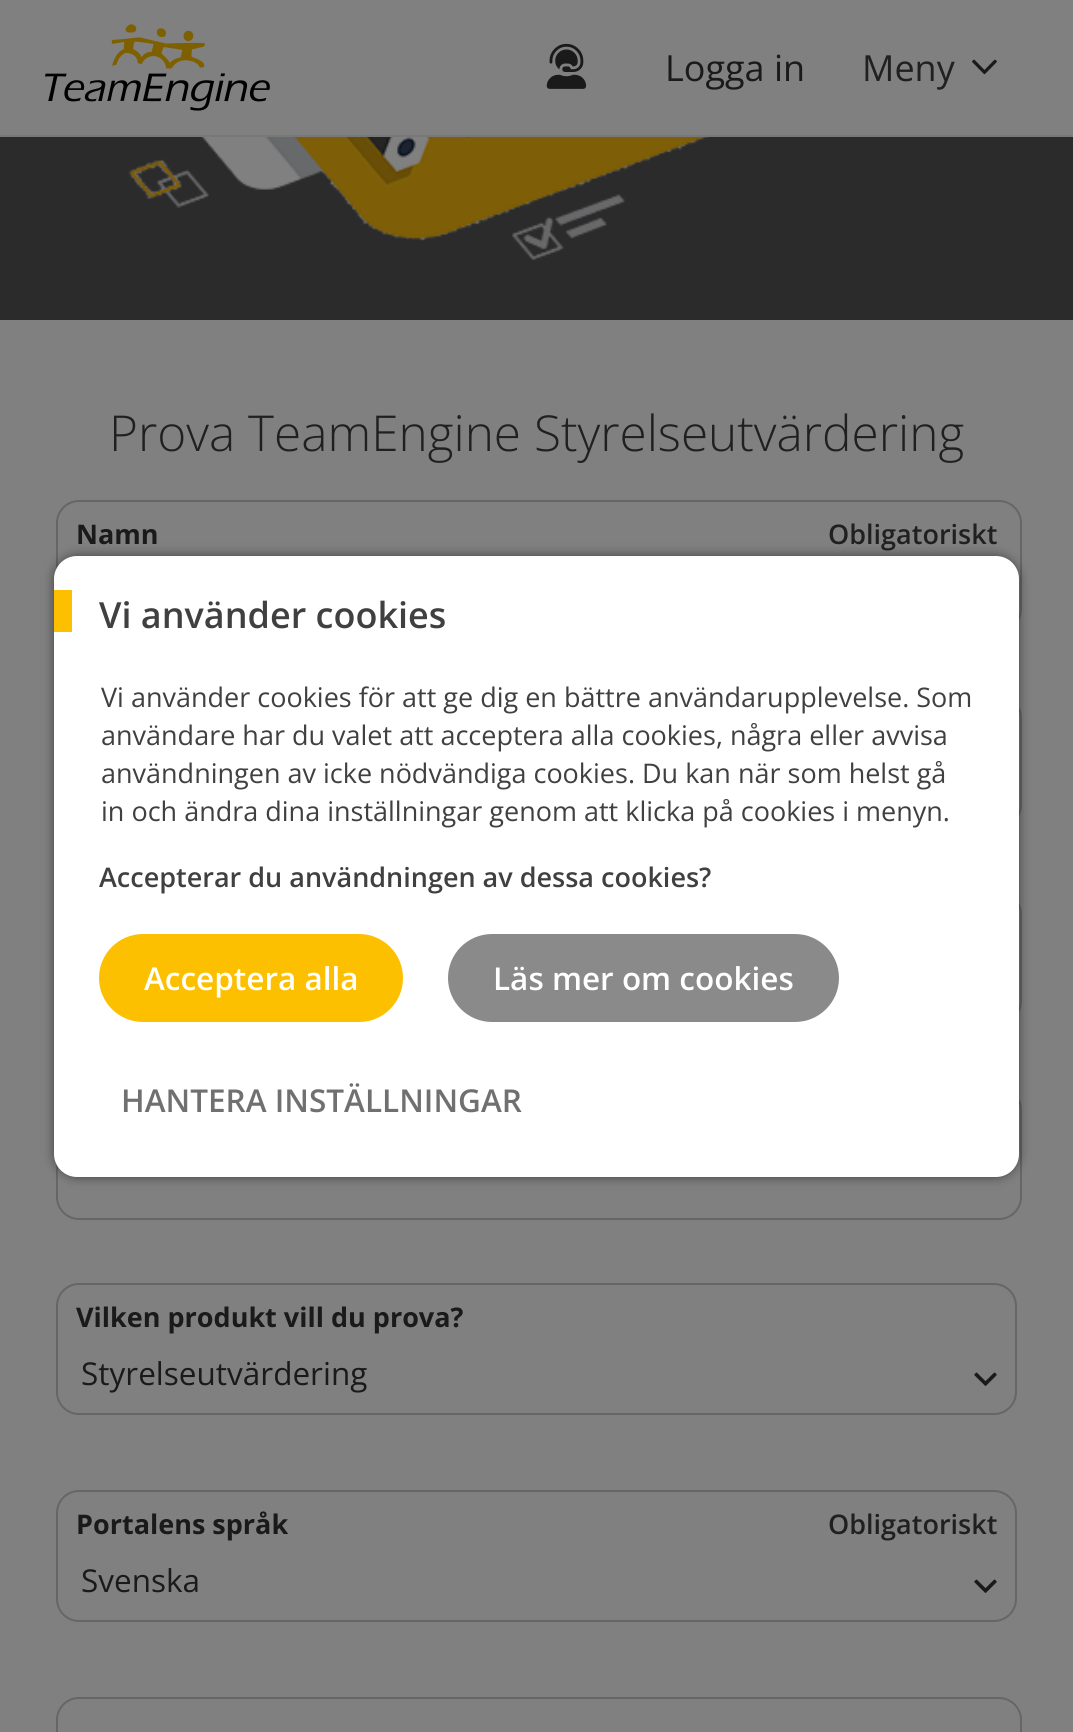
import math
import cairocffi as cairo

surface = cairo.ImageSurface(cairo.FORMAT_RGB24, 1073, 1732)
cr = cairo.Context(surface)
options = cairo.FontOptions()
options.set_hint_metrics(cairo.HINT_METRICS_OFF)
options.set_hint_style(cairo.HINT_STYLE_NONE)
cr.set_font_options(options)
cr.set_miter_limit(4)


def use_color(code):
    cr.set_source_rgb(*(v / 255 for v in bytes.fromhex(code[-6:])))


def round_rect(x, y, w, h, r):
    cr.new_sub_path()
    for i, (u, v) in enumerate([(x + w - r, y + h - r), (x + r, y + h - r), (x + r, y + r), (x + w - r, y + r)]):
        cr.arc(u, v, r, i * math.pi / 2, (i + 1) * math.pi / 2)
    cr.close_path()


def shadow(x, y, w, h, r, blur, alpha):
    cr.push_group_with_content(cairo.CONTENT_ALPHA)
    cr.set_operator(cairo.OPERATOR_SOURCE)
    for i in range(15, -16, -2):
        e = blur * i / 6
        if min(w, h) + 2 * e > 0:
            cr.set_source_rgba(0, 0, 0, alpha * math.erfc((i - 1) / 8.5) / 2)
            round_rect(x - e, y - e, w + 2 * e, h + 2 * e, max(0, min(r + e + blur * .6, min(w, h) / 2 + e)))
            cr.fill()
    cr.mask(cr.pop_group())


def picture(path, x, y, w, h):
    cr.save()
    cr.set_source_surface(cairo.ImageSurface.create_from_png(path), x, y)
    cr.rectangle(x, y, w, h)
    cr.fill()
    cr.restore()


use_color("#808080")
cr.paint()
picture("img1.png", 45, 24, 225, 87)
picture("img2.png", 546, 43, 41, 46)
cr.select_font_face("Open Sans")
cr.set_font_size(36)
use_color("#1a1a1a")
cr.move_to(665, 81)
cr.show_text("Logga in")
use_color("#202020")
cr.move_to(862, 81)
cr.show_text("Meny")
picture("img3.png", 972, 59, 25, 16)
use_color("#787878")
cr.rectangle(0, 135, 1073, 2)
cr.fill()
use_color("#2b2b2b")
cr.rectangle(0, 137, 1073, 183)
cr.fill()
picture("img4.png", 128, 137, 582, 124)
cr.select_font_face("Open Sans Light")
cr.set_font_size(49.5)
use_color("#202020")
cr.move_to(109, 451)
cr.show_text("Prova TeamEngine Styrelseutvärdering")
round_rect(57, 501, 964, 130, 22)
use_color("#666666")
cr.stroke()
cr.select_font_face("Open Sans", cairo.FONT_SLANT_NORMAL, cairo.FONT_WEIGHT_BOLD)
cr.set_font_size(27)
use_color("#1a1a1a")
cr.move_to(76, 544)
cr.show_text("Namn")
cr.select_font_face("Open Sans SemiBold")
use_color("#202020")
cr.move_to(828, 544)
cr.show_text("Obligatoriskt")
round_rect(57, 696, 964, 131, 22)
use_color("#666666")
cr.stroke()
round_rect(57, 892, 964, 131, 22)
cr.stroke()
round_rect(57, 1088, 964, 131, 22)
cr.stroke()
round_rect(57, 1284, 959, 130, 22)
cr.stroke()
cr.select_font_face("Open Sans", cairo.FONT_SLANT_NORMAL, cairo.FONT_WEIGHT_BOLD)
use_color("#1a1a1a")
cr.move_to(76, 1327)
cr.show_text("Vilken produkt vill du prova?")
cr.select_font_face("Open Sans")
cr.set_font_size(31.5)
cr.move_to(81, 1385)
cr.show_text("Styrelseutvärdering")
picture("img5.png", 974, 1372, 23, 14)
round_rect(57, 1491, 959, 130, 22)
use_color("#666666")
cr.stroke()
cr.select_font_face("Open Sans", cairo.FONT_SLANT_NORMAL, cairo.FONT_WEIGHT_BOLD)
cr.set_font_size(27)
use_color("#1a1a1a")
cr.move_to(76, 1534)
cr.show_text("Portalens språk")
cr.select_font_face("Open Sans")
cr.set_font_size(31.5)
cr.move_to(81, 1592)
cr.show_text("Svenska")
cr.select_font_face("Open Sans SemiBold")
cr.set_font_size(27)
use_color("#202020")
cr.move_to(828, 1534)
cr.show_text("Obligatoriskt")
picture("img5.png", 974, 1579, 23, 14)
round_rect(57, 1698, 964, 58, 22)
use_color("#666666")
cr.stroke()
use_color("#000000")
shadow(54, 556, 965, 621, 23, 5.5, 0.5)
use_color("#ffffff")
round_rect(54, 556, 965, 621, 23)
cr.fill()
use_color("#fcc000")
cr.rectangle(54, 590, 18, 42)
cr.fill()
cr.set_font_size(36)
use_color("#404040")
cr.move_to(99, 628)
cr.show_text("Vi använder cookies")
cr.select_font_face("Open Sans")
cr.set_font_size(27)
cr.move_to(101, 707)
cr.show_text("Vi använder cookies för att ge dig en bättre användarupplevelse. Som")
cr.move_to(101, 745)
cr.show_text("användare har du valet att acceptera alla cookies, några eller avvisa")
cr.move_to(101, 783)
cr.show_text("användningen av icke nödvändiga cookies. Du kan när som helst gå")
cr.move_to(101, 821)
cr.show_text("in och ändra dina inställningar genom att klicka på cookies i menyn.")
cr.select_font_face("Open Sans SemiBold")
cr.move_to(99, 887)
cr.show_text("Accepterar du användningen av dessa cookies?")
use_color("#fcc000")
round_rect(99, 934, 304, 88, 44)
cr.fill()
cr.set_font_size(31.5)
use_color("#ffffff")
cr.move_to(144, 990)
cr.show_text("Acceptera alla")
use_color("#8a8a8a")
round_rect(448, 934, 391, 88, 44)
cr.fill()
use_color("#ffffff")
cr.move_to(493, 990)
cr.show_text("Läs mer om cookies")
use_color("#707070")
cr.move_to(121, 1112)
cr.show_text("HANTERA INSTÄLLNINGAR")
surface.write_to_png("result.png")
